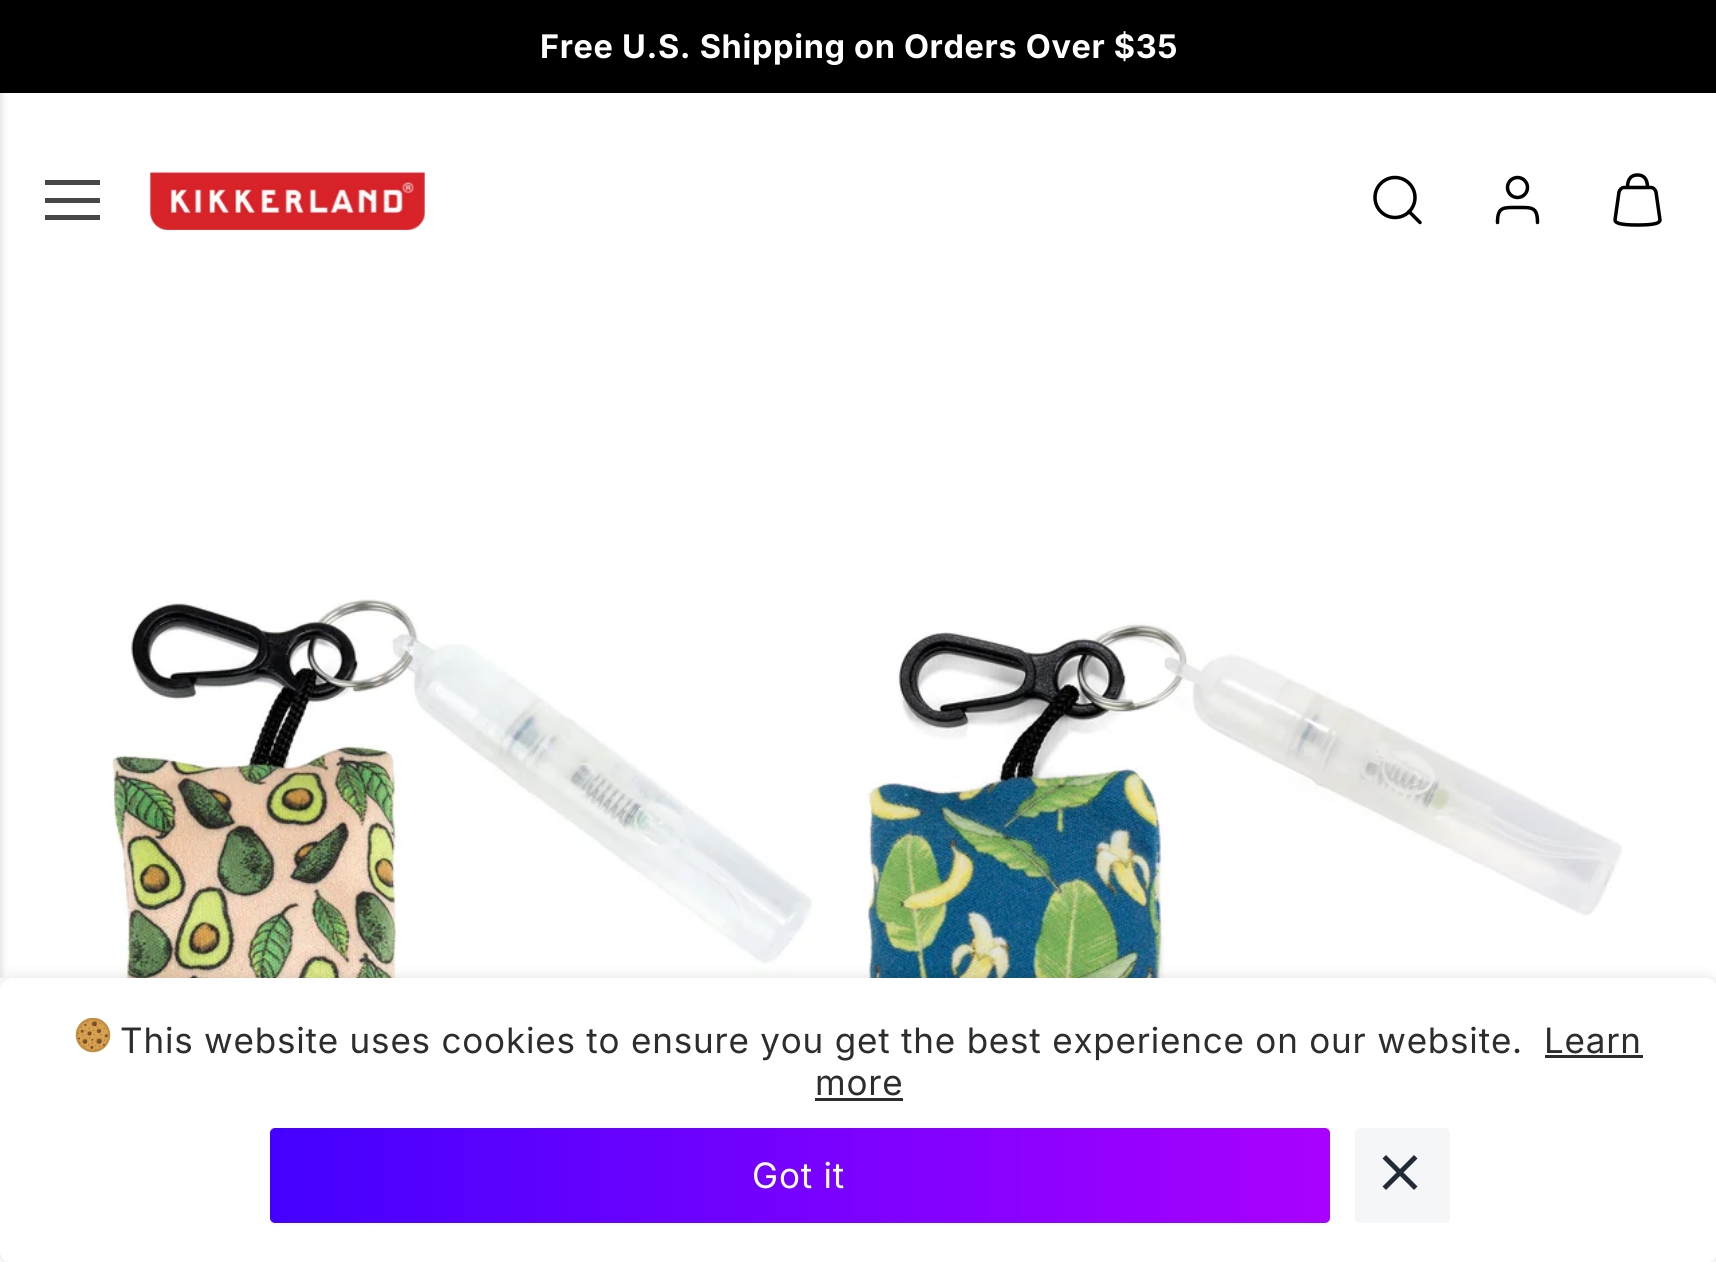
import math
import cairocffi as cairo

surface = cairo.ImageSurface(cairo.FORMAT_RGB24, 1716, 1262)
cr = cairo.Context(surface)
options = cairo.FontOptions()
options.set_hint_metrics(cairo.HINT_METRICS_OFF)
options.set_hint_style(cairo.HINT_STYLE_NONE)
cr.set_font_options(options)
cr.set_miter_limit(4)


def use_color(code):
    cr.set_source_rgb(*(v / 255 for v in bytes.fromhex(code[-6:])))


def spaced_text(x, y, s, letter, word):
    cr.move_to(x, y)
    for ch in s:
        cr.show_text(ch)
        cr.rel_move_to(letter + word * (ch == ' '), 0)


def round_rect(x, y, w, h, r):
    cr.new_sub_path()
    for i, (u, v) in enumerate([(x + w - r, y + h - r), (x + r, y + h - r), (x + r, y + r), (x + w - r, y + r)]):
        cr.arc(u, v, r, i * math.pi / 2, (i + 1) * math.pi / 2)
    cr.close_path()


def shadow(x, y, w, h, r, blur, alpha):
    cr.push_group_with_content(cairo.CONTENT_ALPHA)
    cr.set_operator(cairo.OPERATOR_SOURCE)
    for i in range(15, -16, -2):
        e = blur * i / 6
        if min(w, h) + 2 * e > 0:
            cr.set_source_rgba(0, 0, 0, alpha * math.erfc((i - 1) / 8.5) / 2)
            round_rect(x - e, y - e, w + 2 * e, h + 2 * e, max(0, min(r + e + blur * .6, min(w, h) / 2 + e)))
            cr.fill()
    cr.mask(cr.pop_group())


def picture(path, x, y, w, h):
    cr.save()
    cr.set_source_surface(cairo.ImageSurface.create_from_png(path), x, y)
    cr.rectangle(x, y, w, h)
    cr.fill()
    cr.restore()


use_color("#ffffff")
cr.paint()
use_color("#000000")
cr.rectangle(0, 0, 1716, 93)
cr.fill()
use_color("#000000")
shadow(-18, 0, 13, 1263, 0, 6, 0.5)
use_color("#484848")
cr.rectangle(45, 180, 55, 5)
cr.fill()
cr.rectangle(45, 198, 55, 5)
cr.fill()
cr.rectangle(45, 215, 55, 5)
cr.fill()
picture("img1.png", 150, 172, 275, 58)
cr.arc(1395, 197.5, 20, 0, 2 * math.pi)
use_color("#000000")
cr.set_line_width(3.5)
cr.stroke()
cr.new_path()
cr.move_to(1420, 222.5)
cr.line_to(1409, 211.5)
cr.set_line_cap(cairo.LINE_CAP_ROUND)
cr.set_line_join(cairo.LINE_JOIN_ROUND)
cr.stroke()
cr.new_path()
cr.move_to(1537.5, 222.5)
cr.curve_to(1537.5, 206.5, 1531.5, 207.5, 1517.5, 207.5)
cr.curve_to(1503.5, 207.5, 1497.5, 206.5, 1497.5, 222.5)
cr.stroke()
cr.arc(1517.5, 187.5, 10, 0, 2 * math.pi)
cr.set_line_cap(cairo.LINE_CAP_BUTT)
cr.set_line_join(cairo.LINE_JOIN_MITER)
cr.stroke()
cr.new_path()
cr.move_to(1624, 187.5)
cr.curve_to(1622, 187.5, 1620, 189, 1619, 192)
cr.line_to(1615, 220)
cr.curve_to(1615, 223, 1620, 225, 1637.5, 225)
cr.curve_to(1655, 225, 1660, 223, 1660, 220)
cr.line_to(1656, 192)
cr.curve_to(1655, 189, 1653, 187.5, 1651, 187.5)
cr.close_path()
cr.move_to(1627.5, 187.5)
cr.curve_to(1627.5, 182, 1629, 175, 1637.5, 175)
cr.curve_to(1646, 175, 1647.5, 182, 1647.5, 187.5)
cr.set_line_cap(cairo.LINE_CAP_ROUND)
cr.set_line_join(cairo.LINE_JOIN_ROUND)
cr.stroke()
cr.select_font_face("Inter", cairo.FONT_SLANT_NORMAL, cairo.FONT_WEIGHT_BOLD)
cr.set_font_size(32.5)
use_color("#ffffff")
spaced_text(540, 58, "Free U.S. Shipping on Orders Over $35", 0.65, 0)
picture("img2.png", 106, 599, 1517, 379)
cr.rectangle(0, 978, 7, 284)
cr.fill()
cr.save()
cr.set_fill_rule(cairo.FILL_RULE_EVEN_ODD)
cr.new_path()
cr.move_to(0, 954)
cr.line_to(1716, 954)
cr.line_to(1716, 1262)
cr.line_to(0, 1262)
cr.close_path()
cr.move_to(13, 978)
cr.line_to(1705, 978)
cr.curve_to(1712, 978, 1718, 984, 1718, 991)
cr.line_to(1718, 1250)
cr.curve_to(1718, 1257, 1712, 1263, 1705, 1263)
cr.line_to(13, 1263)
cr.curve_to(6, 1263, 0, 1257, 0, 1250)
cr.line_to(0, 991)
cr.curve_to(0, 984, 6, 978, 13, 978)
cr.close_path()
cr.clip()
use_color("#000000")
shadow(0, 978, 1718, 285, 13, 7.5, 0.12)
cr.restore()
picture("img3.png", 75, 1018, 36, 35)
cr.select_font_face("Inter")
cr.set_font_size(35)
use_color("#2d2d2d")
spaced_text(120, 1053, "This website uses cookies to ensure you get the best experience on our website.", 0.8, 0)
spaced_text(1544, 1053, "Learn", 0.8, 0)
cr.rectangle(1545, 1055, 98, 3)
cr.fill()
spaced_text(815, 1095, "more", 0.8, 0)
cr.rectangle(815, 1098, 88, 3)
cr.fill()
gradient = cairo.LinearGradient(270, 1175, 1330, 1175)
gradient.add_color_stop_rgba(0, 0.267, 0.004, 1, 1)
gradient.add_color_stop_rgba(1, 0.663, 0.004, 1, 1)
cr.set_source(gradient)
round_rect(270, 1128, 1060, 95, 5)
cr.fill()
use_color("#ffffff")
spaced_text(752, 1188, "Got it", 0.8, 0)
use_color("#f4f6f8")
round_rect(1355, 1128, 95, 95, 5)
cr.fill()
use_color("#212b36")
cr.new_path()
cr.move_to(1417.5, 1158.5)
cr.line_to(1414, 1155)
cr.line_to(1400, 1169)
cr.line_to(1386, 1155)
cr.line_to(1382.5, 1158.5)
cr.line_to(1396.5, 1172.5)
cr.line_to(1382.5, 1186.5)
cr.line_to(1386, 1190)
cr.line_to(1400, 1176)
cr.line_to(1414, 1190)
cr.line_to(1417.5, 1186.5)
cr.line_to(1403.5, 1172.5)
cr.close_path()
cr.fill()
surface.write_to_png("result.png")
